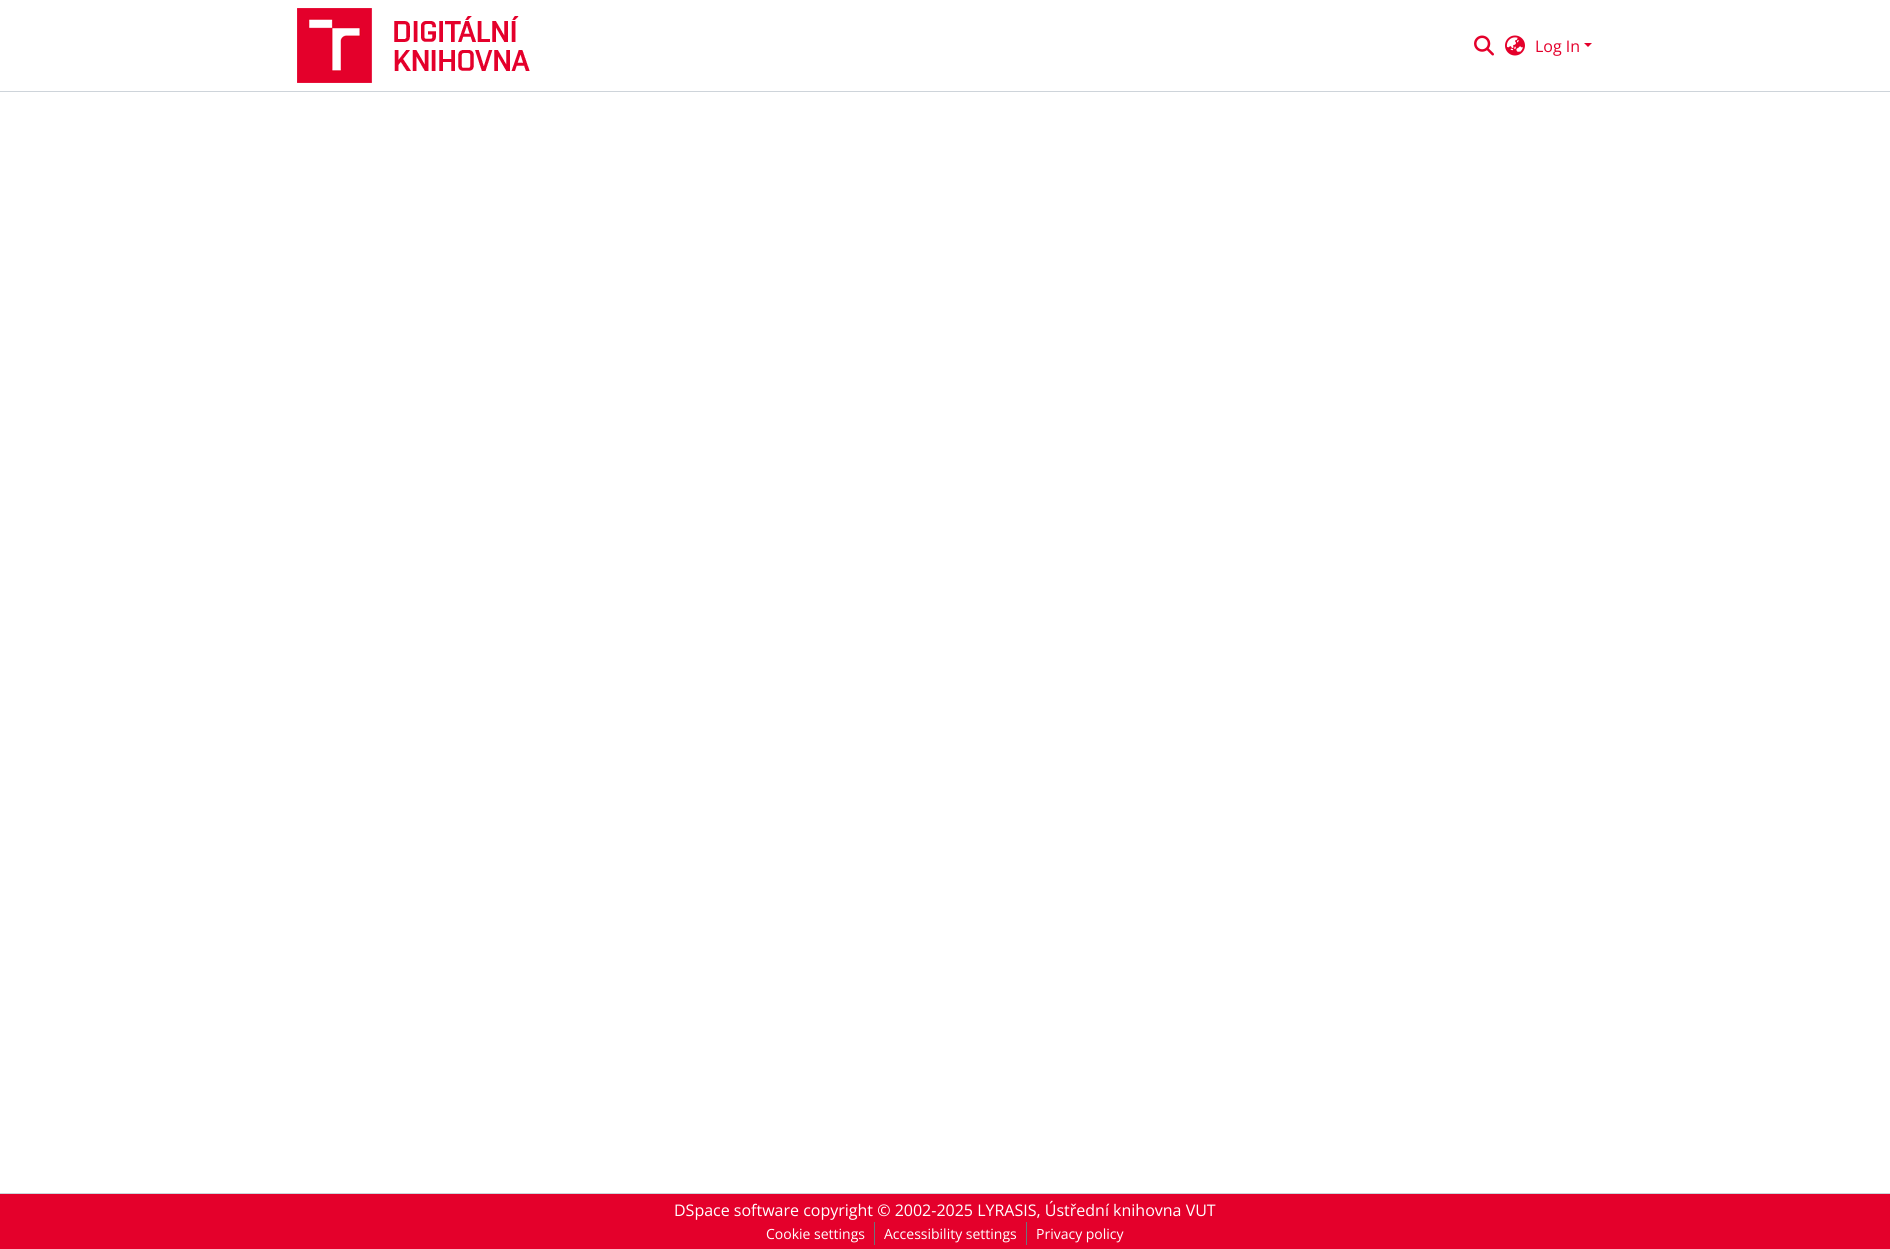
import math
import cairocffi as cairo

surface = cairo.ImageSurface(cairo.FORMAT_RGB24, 1890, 1249)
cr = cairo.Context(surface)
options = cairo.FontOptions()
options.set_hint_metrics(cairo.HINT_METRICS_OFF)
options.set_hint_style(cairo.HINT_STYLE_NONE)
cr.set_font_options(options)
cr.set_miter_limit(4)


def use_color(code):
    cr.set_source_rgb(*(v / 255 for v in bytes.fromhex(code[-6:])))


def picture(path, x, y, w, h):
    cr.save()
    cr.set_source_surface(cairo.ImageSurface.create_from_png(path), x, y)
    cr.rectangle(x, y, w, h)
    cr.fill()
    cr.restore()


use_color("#ffffff")
cr.paint()
use_color("#ced4da")
cr.rectangle(0, 91, 1890, 1)
cr.fill()
picture("img1.png", 297, 8, 233, 75)
picture("img2.png", 1474, 35, 20, 21)
picture("img3.png", 1505, 35, 20, 21)
cr.select_font_face("Open Sans")
cr.set_font_size(16)
use_color("#e4002b")
cr.move_to(1535, 52)
cr.show_text("Log In")
cr.new_path()
cr.move_to(1584, 43)
cr.line_to(1592, 43)
cr.line_to(1588, 47)
cr.close_path()
cr.fill()
cr.rectangle(0, 1194, 1890, 55)
cr.fill()
use_color("#ced4da")
cr.rectangle(0, 1193, 1890, 1)
cr.fill()
use_color("#ffffff")
cr.move_to(674, 1216)
cr.show_text("DSpace software copyright © 2002-2025 LYRASIS, Ústřední knihovna VUT")
cr.set_font_size(14)
cr.move_to(766, 1239)
cr.show_text("Cookie settings")
use_color("#6c757d")
cr.rectangle(874, 1222, 1, 23)
cr.fill()
use_color("#ffffff")
cr.move_to(884, 1239)
cr.show_text("Accessibility settings")
use_color("#6c757d")
cr.rectangle(1026, 1222, 1, 23)
cr.fill()
use_color("#ffffff")
cr.move_to(1036, 1239)
cr.show_text("Privacy policy")
surface.write_to_png("result.png")
